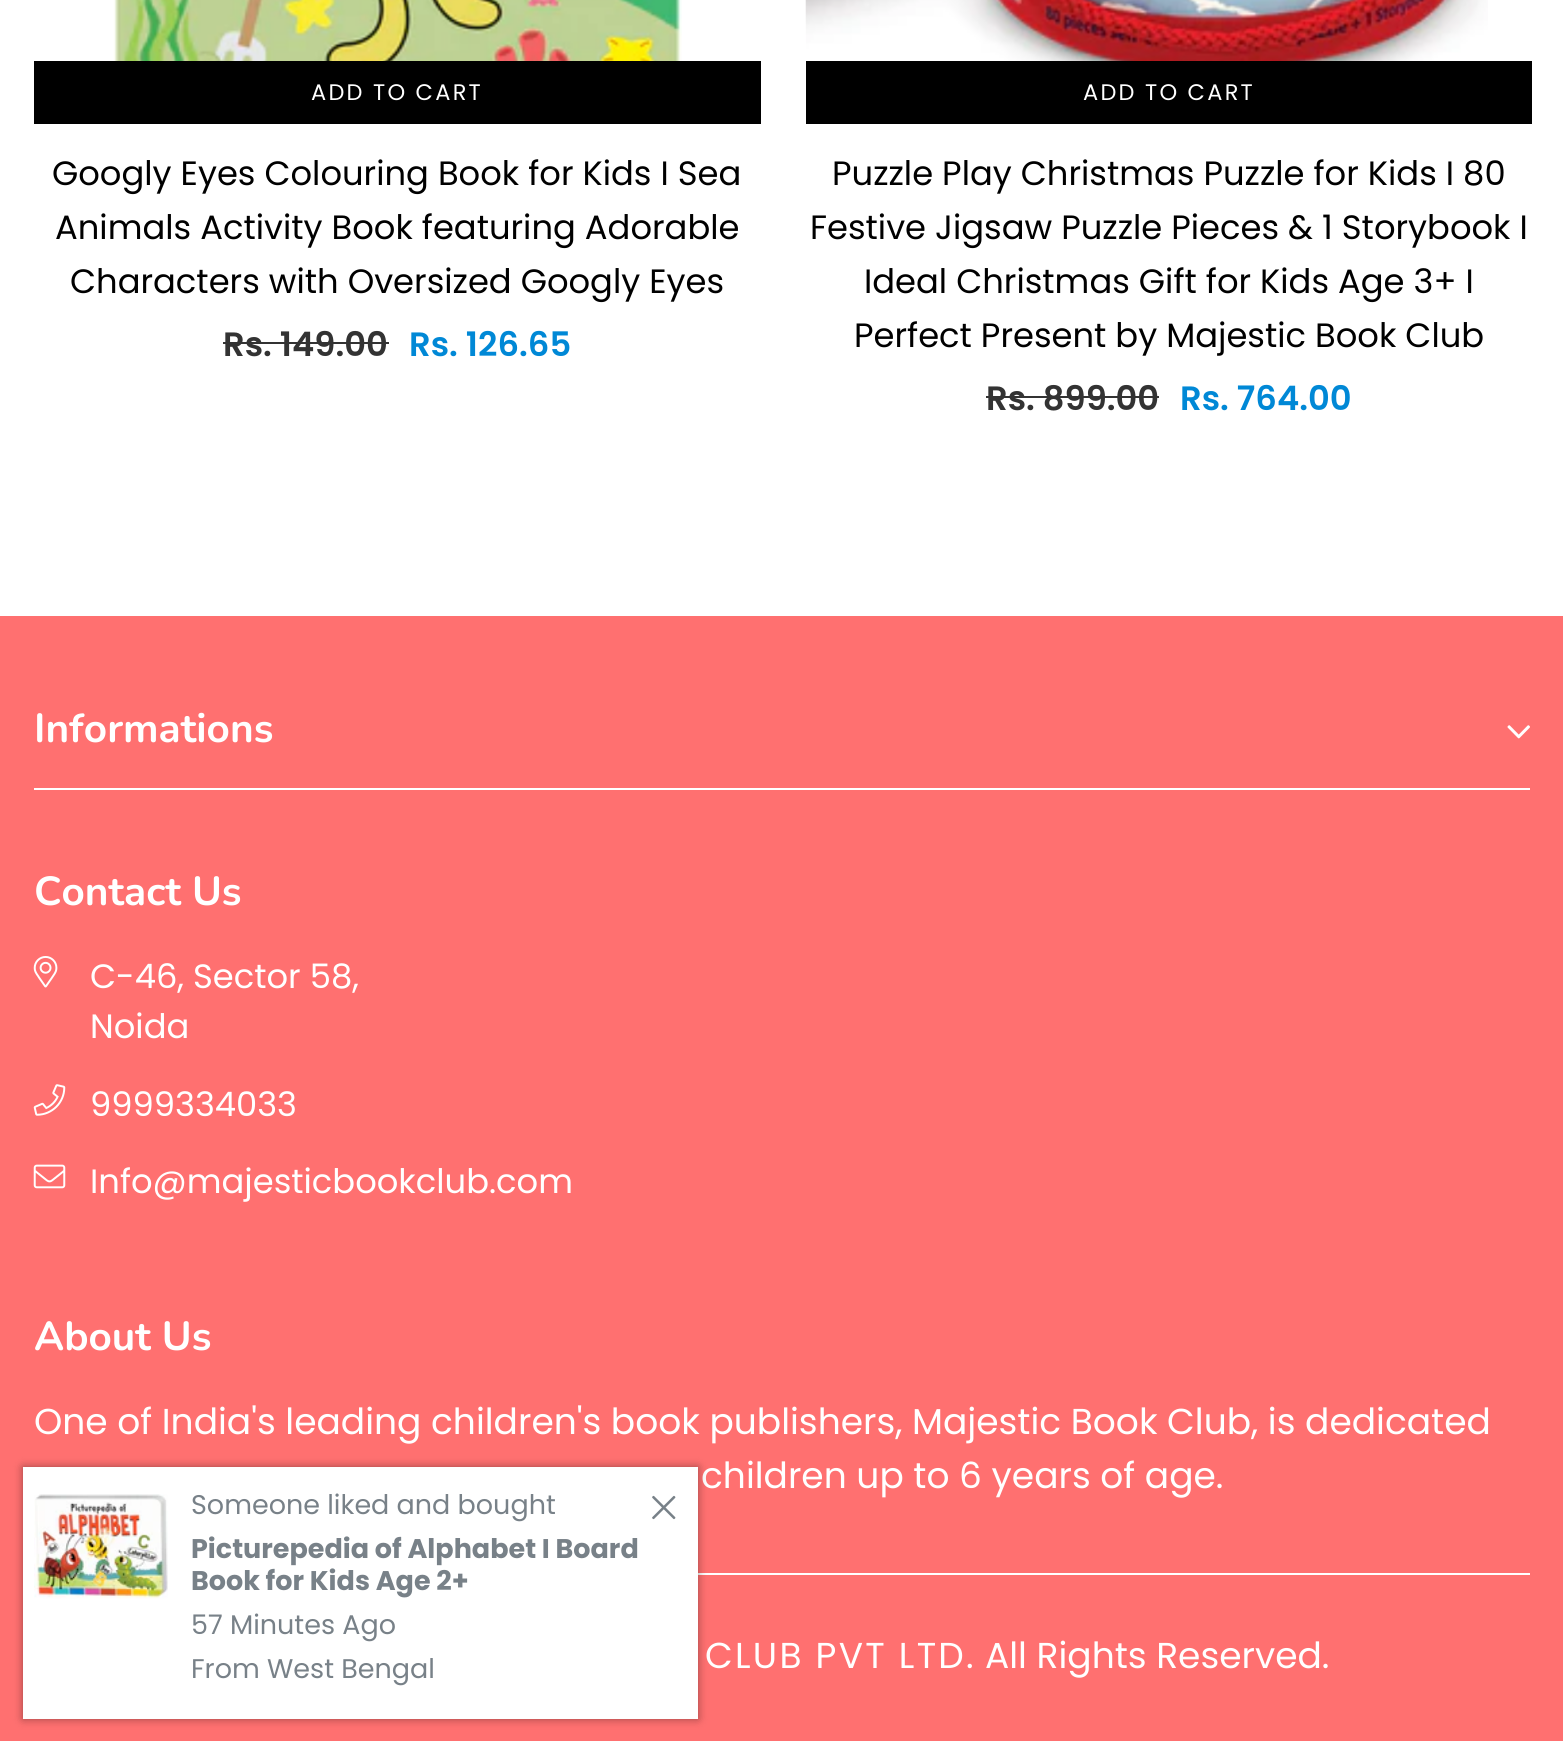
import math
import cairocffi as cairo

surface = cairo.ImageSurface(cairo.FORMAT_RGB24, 1563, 1741)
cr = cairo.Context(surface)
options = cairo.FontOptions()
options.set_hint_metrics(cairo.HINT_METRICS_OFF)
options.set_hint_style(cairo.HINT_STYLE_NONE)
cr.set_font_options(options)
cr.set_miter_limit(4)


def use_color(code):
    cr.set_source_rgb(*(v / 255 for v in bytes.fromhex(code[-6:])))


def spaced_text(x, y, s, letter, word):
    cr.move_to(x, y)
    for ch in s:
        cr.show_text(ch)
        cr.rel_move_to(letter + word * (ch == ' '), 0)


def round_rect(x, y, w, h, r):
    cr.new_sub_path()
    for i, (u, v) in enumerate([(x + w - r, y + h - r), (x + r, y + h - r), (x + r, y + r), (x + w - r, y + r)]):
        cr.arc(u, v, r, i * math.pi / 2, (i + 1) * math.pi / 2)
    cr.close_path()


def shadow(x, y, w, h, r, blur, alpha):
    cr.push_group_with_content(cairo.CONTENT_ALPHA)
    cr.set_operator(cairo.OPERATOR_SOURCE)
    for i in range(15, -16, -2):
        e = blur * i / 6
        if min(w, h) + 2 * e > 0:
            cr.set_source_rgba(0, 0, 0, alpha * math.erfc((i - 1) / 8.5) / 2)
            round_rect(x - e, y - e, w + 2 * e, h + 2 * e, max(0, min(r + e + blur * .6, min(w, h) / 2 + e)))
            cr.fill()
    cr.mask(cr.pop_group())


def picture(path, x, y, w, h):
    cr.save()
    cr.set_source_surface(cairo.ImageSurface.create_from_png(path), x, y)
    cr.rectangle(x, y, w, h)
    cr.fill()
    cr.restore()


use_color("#ffffff")
cr.paint()
picture("img1.png", 113, 0, 569, 61)
use_color("#000000")
cr.rectangle(34, 61, 727, 63)
cr.fill()
cr.select_font_face("Poppins")
cr.set_font_size(22.5)
use_color("#ffffff")
spaced_text(311, 100, "ADD TO CART", 2.25, 0)
cr.set_font_size(33.75)
use_color("#000000")
cr.move_to(52, 185)
cr.show_text("Googly Eyes Colouring Book for Kids I Sea")
cr.move_to(55, 239)
cr.show_text("Animals Activity Book featuring Adorable")
cr.move_to(70, 293)
cr.show_text("Characters with Oversized Googly Eyes")
cr.select_font_face("Poppins SemiBold")
use_color("#333333")
cr.move_to(223, 356)
cr.show_text("Rs. 149.00")
cr.rectangle(223, 342, 166, 2)
cr.fill()
use_color("#0088d6")
cr.move_to(409, 356)
cr.show_text("Rs. 126.65")
picture("img2.png", 805, 0, 683, 92)
use_color("#000000")
cr.rectangle(806, 61, 726, 63)
cr.fill()
cr.select_font_face("Poppins")
cr.set_font_size(22.5)
use_color("#ffffff")
spaced_text(1083, 100, "ADD TO CART", 2.25, 0)
cr.set_font_size(33.75)
use_color("#000000")
cr.move_to(832, 185)
cr.show_text("Puzzle Play Christmas Puzzle for Kids I 80")
cr.move_to(810, 239)
cr.show_text("Festive Jigsaw Puzzle Pieces & 1 Storybook I")
cr.move_to(864, 293)
cr.show_text("Ideal Christmas Gift for Kids Age 3+ I")
cr.move_to(854, 347)
cr.show_text("Perfect Present by Majestic Book Club")
cr.select_font_face("Poppins SemiBold")
use_color("#333333")
cr.move_to(986, 410)
cr.show_text("Rs. 899.00")
cr.rectangle(986, 396, 173, 2)
cr.fill()
use_color("#0088d6")
cr.move_to(1180, 410)
cr.show_text("Rs. 764.00")
use_color("#ff7070")
cr.rectangle(0, 616, 1563, 1125)
cr.fill()
cr.select_font_face("Nunito", cairo.FONT_SLANT_NORMAL, cairo.FONT_WEIGHT_BOLD)
cr.set_font_size(40.5)
use_color("#ffffff")
cr.move_to(34, 742)
cr.show_text("Informations")
picture("img3.png", 1507, 725, 23, 14)
cr.rectangle(34, 788, 1496, 2)
cr.fill()
cr.move_to(34, 905)
cr.show_text("Contact Us")
picture("img4.png", 33, 956, 25, 32)
cr.select_font_face("Poppins")
cr.set_font_size(33.75)
cr.move_to(90, 988)
cr.show_text("C-46, Sector 58,")
cr.move_to(90, 1038)
cr.show_text("Noida")
picture("img5.png", 33, 1084, 33, 32)
cr.move_to(90, 1116)
cr.show_text("9999334033")
picture("img6.png", 33, 1164, 33, 25)
cr.move_to(90, 1193)
cr.show_text("Info@majesticbookclub.com")
cr.select_font_face("Nunito", cairo.FONT_SLANT_NORMAL, cairo.FONT_WEIGHT_BOLD)
cr.set_font_size(40.5)
cr.move_to(34, 1350)
cr.show_text("About Us")
cr.select_font_face("Poppins")
cr.set_font_size(36)
cr.move_to(34, 1434)
cr.show_text("One of India's leading children's book publishers, Majestic Book Club, is dedicated")
cr.move_to(701, 1488)
cr.show_text("children up to 6 years of age.")
cr.rectangle(698, 1573, 832, 2)
cr.fill()
spaced_text(705, 1668, "CLUB PVT LTD.", 2.25, 0)
cr.move_to(985, 1668)
cr.show_text("All Rights Reserved.")
use_color("#000000")
shadow(23, 1467, 675, 252, 0, 4.5, 0.4)
use_color("#ffffff")
cr.rectangle(23, 1467, 675, 252)
cr.fill()
picture("img7.png", 34, 1494, 134, 105)
cr.set_font_size(27)
use_color("#788188")
cr.move_to(191, 1514)
cr.show_text("Someone liked and bought")
cr.select_font_face("Poppins", cairo.FONT_SLANT_NORMAL, cairo.FONT_WEIGHT_BOLD)
cr.move_to(191, 1558)
cr.show_text("Picturepedia of Alphabet I Board")
cr.move_to(191, 1590)
cr.show_text("Book for Kids Age 2+")
cr.select_font_face("Poppins")
cr.move_to(191, 1634)
cr.show_text("57 Minutes Ago")
cr.move_to(191, 1678)
cr.show_text("From West Bengal")
picture("img8.png", 652, 1495, 24, 25)
surface.write_to_png("result.png")
